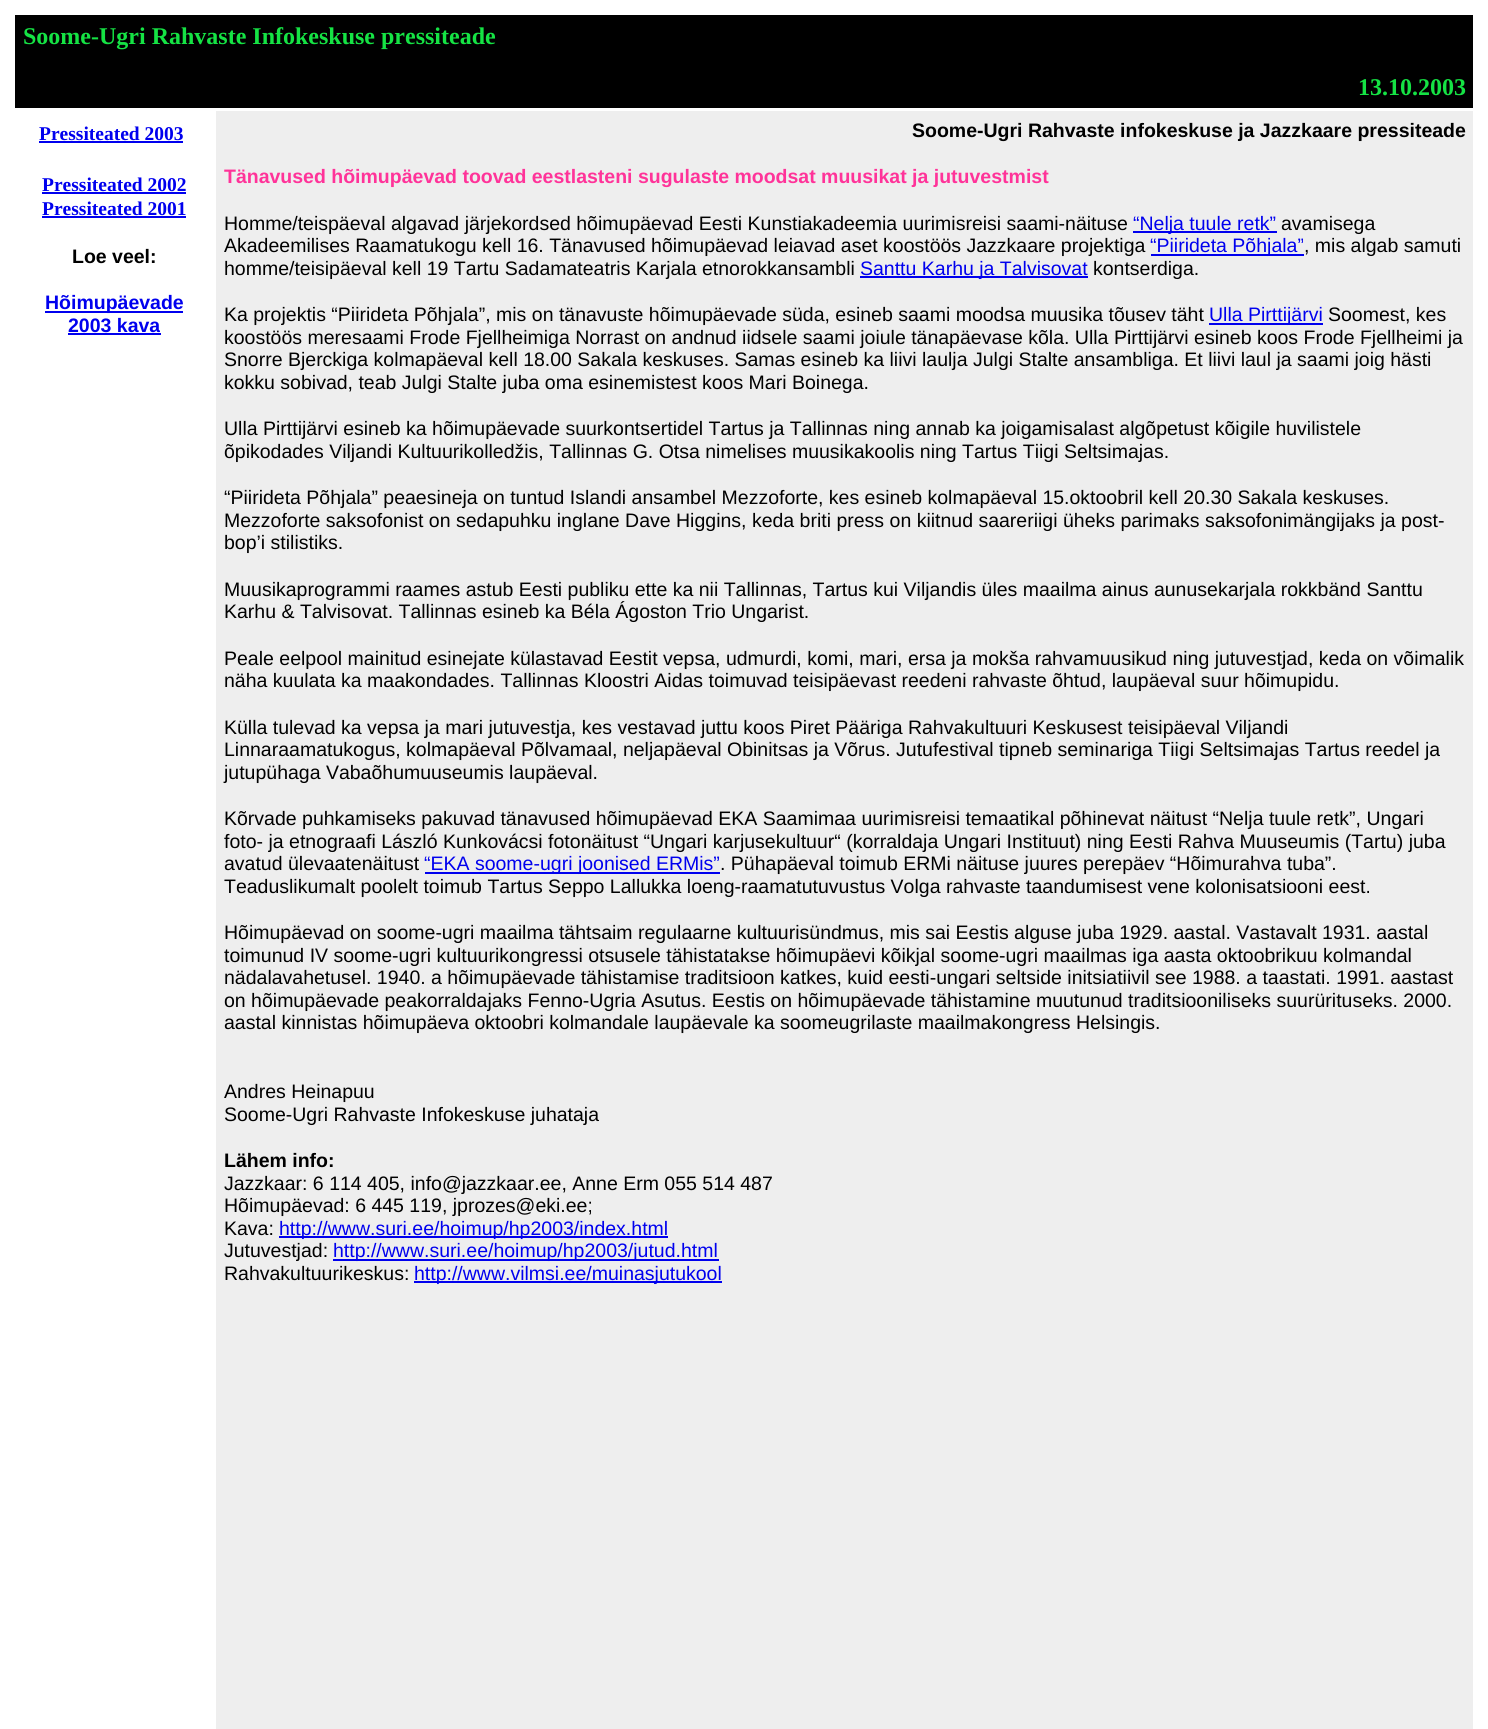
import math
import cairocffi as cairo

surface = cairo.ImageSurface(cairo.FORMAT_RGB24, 1488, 1729)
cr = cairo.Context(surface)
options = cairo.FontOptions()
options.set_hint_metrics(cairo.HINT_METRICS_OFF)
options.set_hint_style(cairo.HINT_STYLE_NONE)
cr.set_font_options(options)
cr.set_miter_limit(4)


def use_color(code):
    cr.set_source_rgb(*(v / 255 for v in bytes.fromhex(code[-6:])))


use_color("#ffffff")
cr.paint()
use_color("#000000")
cr.rectangle(15, 15, 1458, 93)
cr.fill()
cr.select_font_face("Liberation Serif", cairo.FONT_SLANT_NORMAL, cairo.FONT_WEIGHT_BOLD)
cr.set_font_size(24)
use_color("#15e344")
cr.move_to(23, 44)
cr.show_text("Soome-Ugri Rahvaste Infokeskuse pressiteade")
cr.move_to(1358, 95)
cr.show_text("13.10.2003")
cr.set_font_size(19.5)
use_color("#0000ee")
cr.move_to(39, 140)
cr.show_text("Pressiteated 2003")
cr.rectangle(39, 141, 144, 2)
cr.fill()
cr.move_to(42, 191)
cr.show_text("Pressiteated 2002")
cr.rectangle(42, 192, 144, 2)
cr.fill()
cr.move_to(42, 215)
cr.show_text("Pressiteated 2001")
cr.rectangle(42, 216, 144, 2)
cr.fill()
cr.select_font_face("Liberation Sans", cairo.FONT_SLANT_NORMAL, cairo.FONT_WEIGHT_BOLD)
use_color("#000000")
cr.move_to(72, 263)
cr.show_text("Loe veel:")
use_color("#0000ee")
cr.rectangle(45, 311, 138, 2)
cr.fill()
cr.move_to(45, 309)
cr.show_text("Hõimupäevade")
cr.move_to(68, 332)
cr.show_text("2003 kava")
cr.rectangle(68, 333, 93, 2)
cr.fill()
use_color("#eeeeee")
cr.rectangle(216, 111, 1257, 1618)
cr.fill()
use_color("#000000")
cr.move_to(912, 137)
cr.show_text("Soome-Ugri Rahvaste infokeskuse ja Jazzkaare pressiteade")
use_color("#ff3399")
cr.move_to(224, 183)
cr.show_text("Tänavused hõimupäevad toovad eestlasteni sugulaste moodsat muusikat ja jutuvestmist")
cr.select_font_face("Liberation Sans")
use_color("#000000")
cr.move_to(224, 230)
cr.show_text("Homme/teispäeval algavad järjekordsed hõimupäevad Eesti Kunstiakadeemia uurimisreisi saami-näituse")
use_color("#0000ee")
cr.rectangle(1133, 231, 144, 2)
cr.fill()
cr.move_to(1133, 230)
cr.show_text("“Nelja tuule retk”")
use_color("#000000")
cr.move_to(1281, 230)
cr.show_text("avamisega")
cr.move_to(224, 252)
cr.show_text("Akadeemilises Raamatukogu kell 16. Tänavused hõimupäevad leiavad aset koostöös Jazzkaare projektiga")
use_color("#0000ee")
cr.rectangle(1151, 254, 153, 2)
cr.fill()
cr.move_to(1150, 252)
cr.show_text("“Piirideta Põhjala”")
use_color("#000000")
cr.move_to(1304, 252)
cr.show_text(", mis algab samuti")
cr.move_to(224, 275)
cr.show_text("homme/teisipäeval kell 19 Tartu Sadamateatris Karjala etnorokkansambli")
use_color("#0000ee")
cr.rectangle(860, 276, 228, 2)
cr.fill()
cr.move_to(860, 275)
cr.show_text("Santtu Karhu ja Talvisovat")
use_color("#000000")
cr.move_to(1093, 275)
cr.show_text("kontserdiga.")
cr.move_to(224, 321)
cr.show_text("Ka projektis “Piirideta Põhjala”, mis on tänavuste hõimupäevade süda, esineb saami moodsa muusika tõusev täht")
use_color("#0000ee")
cr.rectangle(1209, 323, 114, 2)
cr.fill()
cr.move_to(1209, 321)
cr.show_text("Ulla Pirttijärvi")
use_color("#000000")
cr.move_to(1328, 321)
cr.show_text("Soomest, kes")
cr.move_to(224, 344)
cr.show_text("koostöös meresaami Frode Fjellheimiga Norrast on andnud iidsele saami joiule tänapäevase kõla. Ulla Pirttijärvi esineb koos Frode Fjellheimi ja")
cr.move_to(224, 366)
cr.show_text("Snorre Bjerckiga kolmapäeval kell 18.00 Sakala keskuses. Samas esineb ka liivi laulja Julgi Stalte ansambliga. Et liivi laul ja saami joig hästi")
cr.move_to(224, 389)
cr.show_text("kokku sobivad, teab Julgi Stalte juba oma esinemistest koos Mari Boinega.")
cr.move_to(224, 435)
cr.show_text("Ulla Pirttijärvi esineb ka hõimupäevade suurkontsertidel Tartus ja Tallinnas ning annab ka joigamisalast algõpetust kõigile huvilistele")
cr.move_to(224, 458)
cr.show_text("õpikodades Viljandi Kultuurikolledžis, Tallinnas G. Otsa nimelises muusikakoolis ning Tartus Tiigi Seltsimajas.")
cr.move_to(224, 504)
cr.show_text("“Piirideta Põhjala” peaesineja on tuntud Islandi ansambel Mezzoforte, kes esineb kolmapäeval 15.oktoobril kell 20.30 Sakala keskuses.")
cr.move_to(224, 527)
cr.show_text("Mezzoforte saksofonist on sedapuhku inglane Dave Higgins, keda briti press on kiitnud saareriigi üheks parimaks saksofonimängijaks ja post-")
cr.move_to(224, 549)
cr.show_text("bop’i stilistiks.")
cr.move_to(224, 596)
cr.show_text("Muusikaprogrammi raames astub Eesti publiku ette ka nii Tallinnas, Tartus kui Viljandis üles maailma ainus aunusekarjala rokkbänd Santtu")
cr.move_to(224, 618)
cr.show_text("Karhu & Talvisovat. Tallinnas esineb ka Béla Ágoston Trio Ungarist.")
cr.move_to(224, 665)
cr.show_text("Peale eelpool mainitud esinejate külastavad Eestit vepsa, udmurdi, komi, mari, ersa ja mokša rahvamuusikud ning jutuvestjad, keda on võimalik")
cr.move_to(224, 687)
cr.show_text("näha kuulata ka maakondades. Tallinnas Kloostri Aidas toimuvad teisipäevast reedeni rahvaste õhtud, laupäeval suur hõimupidu.")
cr.move_to(224, 734)
cr.show_text("Külla tulevad ka vepsa ja mari jutuvestja, kes vestavad juttu koos Piret Pääriga Rahvakultuuri Keskusest teisipäeval Viljandi")
cr.move_to(224, 756)
cr.show_text("Linnaraamatukogus, kolmapäeval Põlvamaal, neljapäeval Obinitsas ja Võrus. Jutufestival tipneb seminariga Tiigi Seltsimajas Tartus reedel ja")
cr.move_to(224, 779)
cr.show_text("jutupühaga Vabaõhumuuseumis laupäeval.")
cr.move_to(224, 825)
cr.show_text("Kõrvade puhkamiseks pakuvad tänavused hõimupäevad EKA Saamimaa uurimisreisi temaatikal põhinevat näitust “Nelja tuule retk”, Ungari")
cr.move_to(224, 848)
cr.show_text("foto- ja etnograafi László Kunkovácsi fotonäitust “Ungari karjusekultuur“ (korraldaja Ungari Instituut) ning Eesti Rahva Muuseumis (Tartu) juba")
cr.move_to(224, 870)
cr.show_text("avatud ülevaatenäitust")
use_color("#0000ee")
cr.rectangle(425, 872, 295, 2)
cr.fill()
cr.move_to(424, 870)
cr.show_text("“EKA soome-ugri joonised ERMis”")
use_color("#000000")
cr.move_to(720, 870)
cr.show_text(". Pühapäeval toimub ERMi näituse juures perepäev “Hõimurahva tuba”.")
cr.move_to(224, 893)
cr.show_text("Teaduslikumalt poolelt toimub Tartus Seppo Lallukka loeng-raamatutuvustus Volga rahvaste taandumisest vene kolonisatsiooni eest.")
cr.move_to(224, 939)
cr.show_text("Hõimupäevad on soome-ugri maailma tähtsaim regulaarne kultuurisündmus, mis sai Eestis alguse juba 1929. aastal. Vastavalt 1931. aastal")
cr.move_to(224, 962)
cr.show_text("toimunud IV soome-ugri kultuurikongressi otsusele tähistatakse hõimupäevi kõikjal soome-ugri maailmas iga aasta oktoobrikuu kolmandal")
cr.move_to(224, 984)
cr.show_text("nädalavahetusel. 1940. a hõimupäevade tähistamise traditsioon katkes, kuid eesti-ungari seltside initsiatiivil see 1988. a taastati. 1991. aastast")
cr.move_to(224, 1007)
cr.show_text("on hõimupäevade peakorraldajaks Fenno-Ugria Asutus. Eestis on hõimupäevade tähistamine muutunud traditsiooniliseks suurürituseks. 2000.")
cr.move_to(224, 1029)
cr.show_text("aastal kinnistas hõimupäeva oktoobri kolmandale laupäevale ka soomeugrilaste maailmakongress Helsingis.")
cr.move_to(224, 1098)
cr.show_text("Andres Heinapuu")
cr.move_to(224, 1121)
cr.show_text("Soome-Ugri Rahvaste Infokeskuse juhataja")
cr.select_font_face("Liberation Sans", cairo.FONT_SLANT_NORMAL, cairo.FONT_WEIGHT_BOLD)
cr.move_to(224, 1167)
cr.show_text("Lähem info:")
cr.select_font_face("Liberation Sans")
cr.move_to(224, 1190)
cr.show_text("Jazzkaar: 6 114 405, info@jazzkaar.ee, Anne Erm 055 514 487")
cr.move_to(224, 1212)
cr.show_text("Hõimupäevad: 6 445 119, jprozes@eki.ee;")
cr.move_to(224, 1235)
cr.show_text("Kava:")
use_color("#0000ee")
cr.rectangle(279, 1236, 389, 2)
cr.fill()
cr.move_to(279, 1235)
cr.show_text("http://www.suri.ee/hoimup/hp2003/index.html")
use_color("#000000")
cr.move_to(224, 1257)
cr.show_text("Jutuvestjad:")
use_color("#0000ee")
cr.rectangle(333, 1259, 386, 2)
cr.fill()
cr.move_to(333, 1257)
cr.show_text("http://www.suri.ee/hoimup/hp2003/jutud.html")
use_color("#000000")
cr.move_to(224, 1280)
cr.show_text("Rahvakultuurikeskus:")
use_color("#0000ee")
cr.rectangle(414, 1281, 308, 2)
cr.fill()
cr.move_to(414, 1280)
cr.show_text("http://www.vilmsi.ee/muinasjutukool")
surface.write_to_png("result.png")
